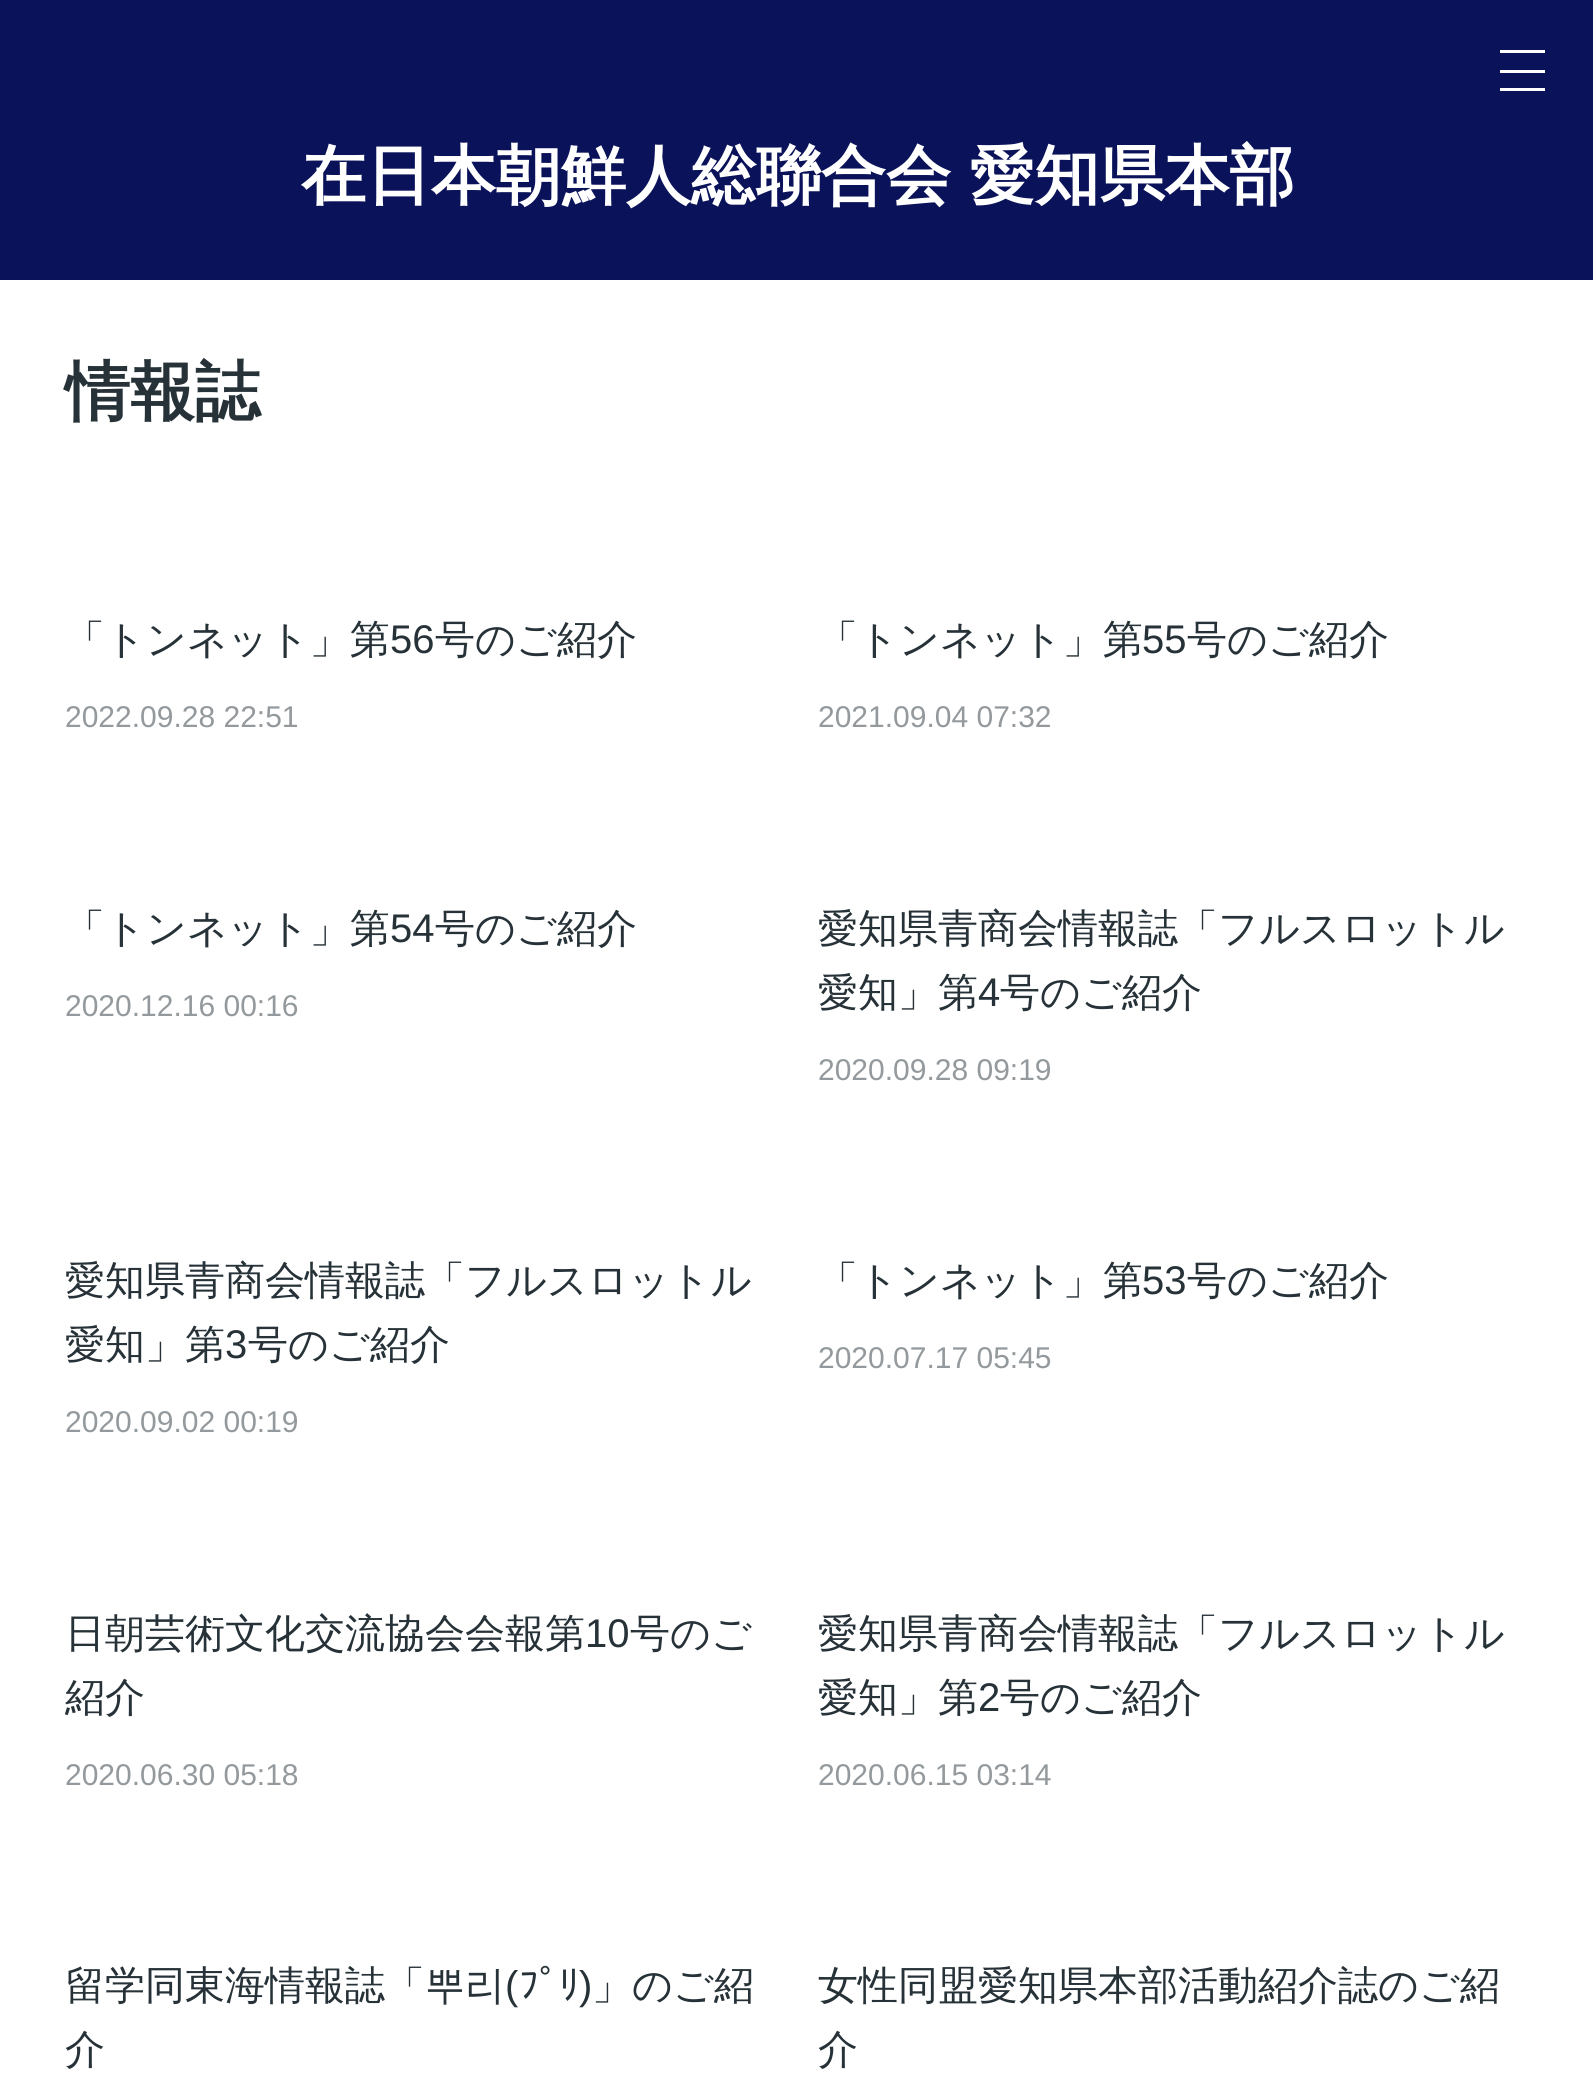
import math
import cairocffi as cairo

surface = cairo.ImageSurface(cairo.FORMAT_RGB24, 1593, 2099)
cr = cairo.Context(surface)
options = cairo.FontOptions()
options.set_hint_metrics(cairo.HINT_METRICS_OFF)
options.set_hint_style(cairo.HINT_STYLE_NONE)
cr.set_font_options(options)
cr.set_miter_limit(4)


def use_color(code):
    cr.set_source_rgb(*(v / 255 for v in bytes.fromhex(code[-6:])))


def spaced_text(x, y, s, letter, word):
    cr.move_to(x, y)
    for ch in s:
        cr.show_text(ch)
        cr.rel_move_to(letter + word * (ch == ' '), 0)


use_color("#ffffff")
cr.paint()
use_color("#0a1259")
cr.rectangle(0, 0, 1593, 280)
cr.fill()
use_color("#ffffff")
cr.rectangle(1500, 50, 45, 3)
cr.fill()
cr.rectangle(1500, 70, 45, 3)
cr.fill()
cr.rectangle(1500, 88, 45, 3)
cr.fill()
cr.select_font_face("WenQuanYi Zen Hei", cairo.FONT_SLANT_NORMAL, cairo.FONT_WEIGHT_BOLD)
cr.set_font_size(65)
spaced_text(301, 198, "在日本朝鮮人総聯合会 愛知県本部", 0, -1)
use_color("#263238")
cr.move_to(65, 414)
cr.show_text("情報誌")
cr.select_font_face("WenQuanYi Zen Hei Medium")
cr.set_font_size(40)
cr.move_to(65, 653)
cr.show_text("「トンネット」第")
cr.select_font_face("Liberation Sans")
cr.move_to(390, 653)
cr.show_text("56")
cr.select_font_face("WenQuanYi Zen Hei Medium")
cr.move_to(435, 653)
cr.show_text("号のご紹介")
cr.select_font_face("Liberation Sans")
cr.set_font_size(30)
use_color("#93999c")
cr.move_to(65, 727)
cr.show_text("2022.09.28 22:51")
cr.select_font_face("WenQuanYi Zen Hei Medium")
cr.set_font_size(40)
use_color("#263238")
cr.move_to(818, 653)
cr.show_text("「トンネット」第")
cr.select_font_face("Liberation Sans")
cr.move_to(1142, 653)
cr.show_text("55")
cr.select_font_face("WenQuanYi Zen Hei Medium")
cr.move_to(1187, 653)
cr.show_text("号のご紹介")
cr.select_font_face("Liberation Sans")
cr.set_font_size(30)
use_color("#93999c")
cr.move_to(818, 727)
cr.show_text("2021.09.04 07:32")
cr.select_font_face("WenQuanYi Zen Hei Medium")
cr.set_font_size(40)
use_color("#263238")
cr.move_to(65, 942)
cr.show_text("「トンネット」第")
cr.select_font_face("Liberation Sans")
cr.move_to(390, 942)
cr.show_text("54")
cr.select_font_face("WenQuanYi Zen Hei Medium")
cr.move_to(435, 942)
cr.show_text("号のご紹介")
cr.select_font_face("Liberation Sans")
cr.set_font_size(30)
use_color("#93999c")
cr.move_to(65, 1016)
cr.show_text("2020.12.16 00:16")
cr.select_font_face("WenQuanYi Zen Hei Medium")
cr.set_font_size(40)
use_color("#263238")
cr.move_to(818, 942)
cr.show_text("愛知県青商会情報誌「フルスロットル")
cr.move_to(818, 1006)
cr.show_text("愛知」第")
cr.select_font_face("Liberation Sans")
cr.move_to(978, 1006)
cr.show_text("4")
cr.select_font_face("WenQuanYi Zen Hei Medium")
cr.move_to(1000, 1006)
cr.show_text("号のご紹介")
cr.select_font_face("Liberation Sans")
cr.set_font_size(30)
use_color("#93999c")
cr.move_to(818, 1080)
cr.show_text("2020.09.28 09:19")
cr.select_font_face("WenQuanYi Zen Hei Medium")
cr.set_font_size(40)
use_color("#263238")
cr.move_to(65, 1294)
cr.show_text("愛知県青商会情報誌「フルスロットル")
cr.move_to(65, 1358)
cr.show_text("愛知」第")
cr.select_font_face("Liberation Sans")
cr.move_to(225, 1358)
cr.show_text("3")
cr.select_font_face("WenQuanYi Zen Hei Medium")
cr.move_to(248, 1358)
cr.show_text("号のご紹介")
cr.select_font_face("Liberation Sans")
cr.set_font_size(30)
use_color("#93999c")
cr.move_to(65, 1432)
cr.show_text("2020.09.02 00:19")
cr.select_font_face("WenQuanYi Zen Hei Medium")
cr.set_font_size(40)
use_color("#263238")
cr.move_to(818, 1294)
cr.show_text("「トンネット」第")
cr.select_font_face("Liberation Sans")
cr.move_to(1142, 1294)
cr.show_text("53")
cr.select_font_face("WenQuanYi Zen Hei Medium")
cr.move_to(1187, 1294)
cr.show_text("号のご紹介")
cr.select_font_face("Liberation Sans")
cr.set_font_size(30)
use_color("#93999c")
cr.move_to(818, 1368)
cr.show_text("2020.07.17 05:45")
cr.select_font_face("WenQuanYi Zen Hei Medium")
cr.set_font_size(40)
use_color("#263238")
cr.move_to(65, 1647)
cr.show_text("日朝芸術文化交流協会会報第")
cr.select_font_face("Liberation Sans")
cr.move_to(585, 1647)
cr.show_text("10")
cr.select_font_face("WenQuanYi Zen Hei Medium")
cr.move_to(630, 1647)
cr.show_text("号のご")
cr.move_to(65, 1711)
cr.show_text("紹介")
cr.select_font_face("Liberation Sans")
cr.set_font_size(30)
use_color("#93999c")
cr.move_to(65, 1785)
cr.show_text("2020.06.30 05:18")
cr.select_font_face("WenQuanYi Zen Hei Medium")
cr.set_font_size(40)
use_color("#263238")
cr.move_to(818, 1647)
cr.show_text("愛知県青商会情報誌「フルスロットル")
cr.move_to(818, 1711)
cr.show_text("愛知」第")
cr.select_font_face("Liberation Sans")
cr.move_to(978, 1711)
cr.show_text("2")
cr.select_font_face("WenQuanYi Zen Hei Medium")
cr.move_to(1000, 1711)
cr.show_text("号のご紹介")
cr.select_font_face("Liberation Sans")
cr.set_font_size(30)
use_color("#93999c")
cr.move_to(818, 1785)
cr.show_text("2020.06.15 03:14")
cr.select_font_face("WenQuanYi Zen Hei Medium")
cr.set_font_size(40)
use_color("#263238")
cr.move_to(65, 1999)
cr.show_text("留学同東海情報誌「뿌리")
cr.select_font_face("Liberation Sans")
cr.move_to(505, 1999)
cr.show_text("(")
cr.select_font_face("IPAPGothic")
cr.move_to(519, 1999)
cr.show_text("ﾌﾟﾘ")
cr.select_font_face("Liberation Sans")
cr.move_to(579, 1999)
cr.show_text(")")
cr.select_font_face("WenQuanYi Zen Hei Medium")
cr.move_to(592, 1999)
cr.show_text("」のご紹")
cr.move_to(65, 2063)
cr.show_text("介")
cr.move_to(818, 1999)
cr.show_text("女性同盟愛知県本部活動紹介誌のご紹")
cr.move_to(818, 2063)
cr.show_text("介")
surface.write_to_png("result.png")
